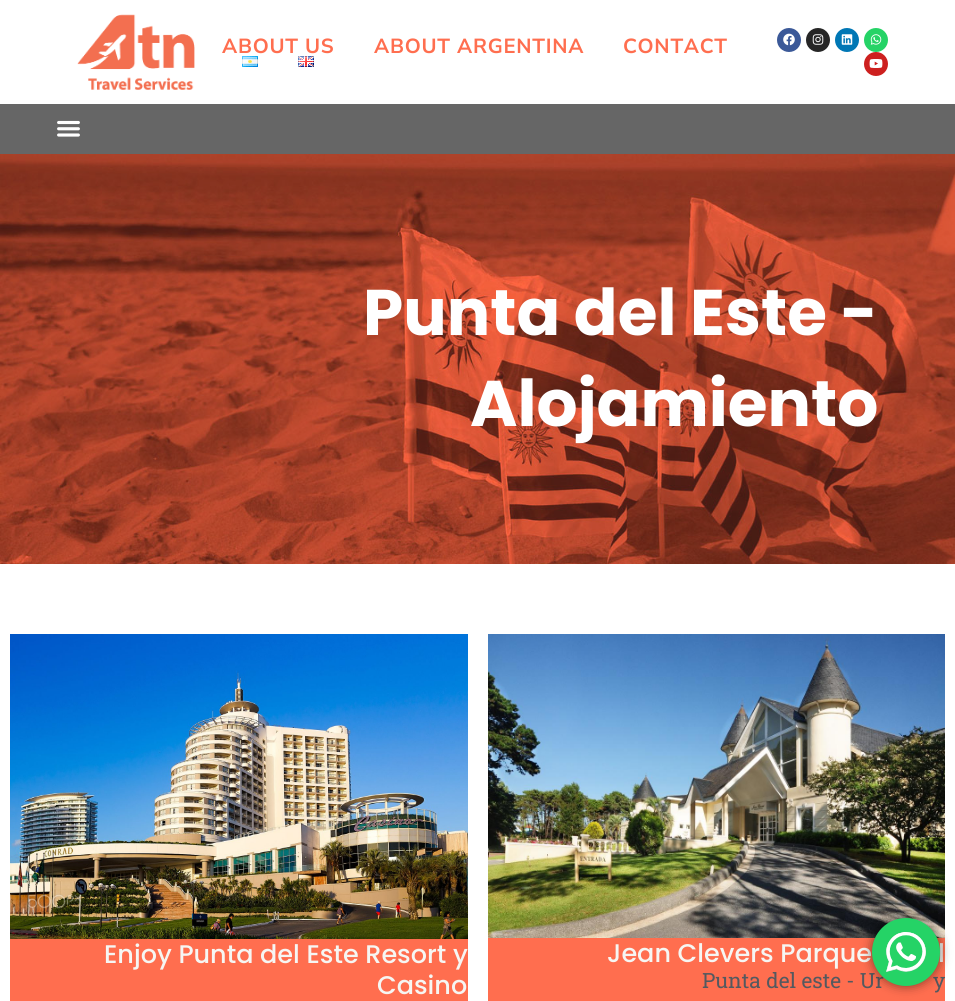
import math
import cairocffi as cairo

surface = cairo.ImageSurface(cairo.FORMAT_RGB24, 955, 1001)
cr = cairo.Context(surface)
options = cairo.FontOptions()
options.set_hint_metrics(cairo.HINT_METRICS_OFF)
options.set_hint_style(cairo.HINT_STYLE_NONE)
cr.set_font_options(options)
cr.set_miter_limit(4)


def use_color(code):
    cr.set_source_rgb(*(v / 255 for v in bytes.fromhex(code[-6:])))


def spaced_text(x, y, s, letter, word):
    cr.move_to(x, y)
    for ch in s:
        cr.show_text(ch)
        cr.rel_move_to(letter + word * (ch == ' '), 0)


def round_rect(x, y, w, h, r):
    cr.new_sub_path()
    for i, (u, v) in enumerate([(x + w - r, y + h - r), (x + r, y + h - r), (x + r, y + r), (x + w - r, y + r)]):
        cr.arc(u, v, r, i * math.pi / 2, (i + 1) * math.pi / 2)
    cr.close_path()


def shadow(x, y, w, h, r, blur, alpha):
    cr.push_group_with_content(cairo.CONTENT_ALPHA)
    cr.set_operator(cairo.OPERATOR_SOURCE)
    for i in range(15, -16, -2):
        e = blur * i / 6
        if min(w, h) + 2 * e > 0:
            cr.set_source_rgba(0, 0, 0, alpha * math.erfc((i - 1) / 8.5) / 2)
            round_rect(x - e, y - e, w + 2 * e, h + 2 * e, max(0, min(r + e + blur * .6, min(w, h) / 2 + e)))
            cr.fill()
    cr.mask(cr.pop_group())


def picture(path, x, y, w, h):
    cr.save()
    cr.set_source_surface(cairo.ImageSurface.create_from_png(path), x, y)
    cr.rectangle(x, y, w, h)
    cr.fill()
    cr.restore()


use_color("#ffffff")
cr.paint()
picture("img1.png", 77, 14, 118, 76)
cr.select_font_face("Nunito Sans", cairo.FONT_SLANT_NORMAL, cairo.FONT_WEIGHT_BOLD)
cr.set_font_size(20.4)
use_color("#ff6e4f")
spaced_text(222, 53, "ABOUT US", 0.75, 0)
spaced_text(374, 53, "ABOUT ARGENTINA", 0.75, 0)
spaced_text(623, 53, "CONTACT", 0.75, 0)
picture("img2.png", 242, 56, 16, 11)
picture("img3.png", 298, 56, 16, 11)
use_color("#3b5998")
cr.arc(789, 40, 12, 0, 2 * math.pi)
cr.fill()
picture("img4.png", 783, 33, 12, 13)
use_color("#262626")
cr.arc(818, 40, 12, 0, 2 * math.pi)
cr.fill()
picture("img5.png", 812, 34, 12, 11)
use_color("#0077b5")
cr.arc(847, 40, 12, 0, 2 * math.pi)
cr.fill()
picture("img6.png", 841, 34, 12, 11)
use_color("#25d366")
cr.arc(876, 40, 12, 0, 2 * math.pi)
cr.fill()
picture("img7.png", 870, 34, 12, 11)
use_color("#cd201f")
cr.arc(876, 64, 12, 0, 2 * math.pi)
cr.fill()
picture("img8.png", 869, 59, 14, 9)
use_color("#666666")
cr.rectangle(0, 104, 955, 50)
cr.fill()
picture("img9.png", 57, 120, 23, 17)
picture("img10.png", 0, 154, 955, 410)
cr.select_font_face("Poppins", cairo.FONT_SLANT_NORMAL, cairo.FONT_WEIGHT_BOLD)
cr.set_font_size(64.5)
use_color("#ffffff")
cr.move_to(363, 335)
cr.show_text("Punta del Este -")
cr.move_to(470, 426)
cr.show_text("Alojamiento")
use_color("#ff6e4f")
cr.rectangle(10, 939, 458, 62)
cr.fill()
picture("img11.png", 10, 634, 458, 305)
cr.select_font_face("Poppins Medium")
cr.set_font_size(25.5)
use_color("#f6f6f3")
cr.move_to(104, 963)
cr.show_text("Enjoy Punta del Este Resort y")
cr.move_to(377, 994)
cr.show_text("Casino")
use_color("#ff6e4f")
cr.rectangle(488, 938, 457, 63)
cr.fill()
picture("img12.png", 488, 634, 457, 304)
use_color("#f6f6f3")
cr.move_to(607, 962)
cr.show_text("Jean Clevers Parque")
cr.move_to(938, 962)
cr.show_text("l")
cr.select_font_face("Roboto Slab")
cr.set_font_size(21)
use_color("#54595f")
cr.move_to(702, 988)
cr.show_text("Punta del este - Ur")
cr.move_to(933, 988)
cr.show_text("y")
use_color("#000000")
shadow(872, 918, 68, 68, 34, 5.5, 0.5)
use_color("#25d366")
cr.arc(906, 952, 34, 0, 2 * math.pi)
cr.fill()
picture("img13.png", 886, 932, 40, 40)
surface.write_to_png("result.png")
